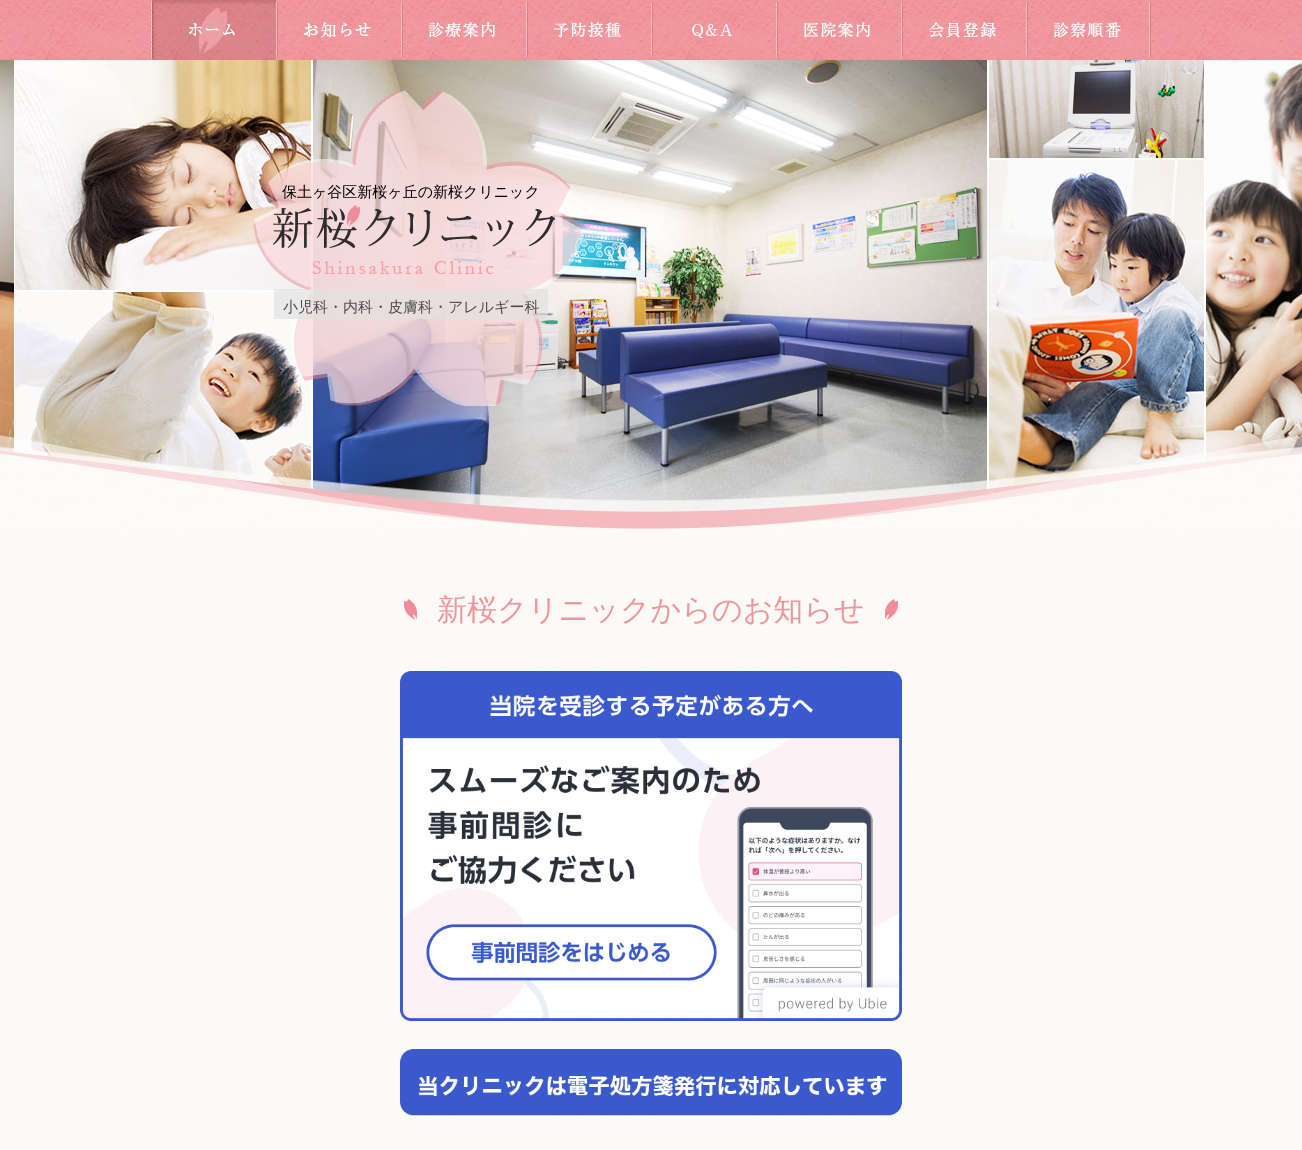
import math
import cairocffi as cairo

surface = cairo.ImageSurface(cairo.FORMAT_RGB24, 1302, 1150)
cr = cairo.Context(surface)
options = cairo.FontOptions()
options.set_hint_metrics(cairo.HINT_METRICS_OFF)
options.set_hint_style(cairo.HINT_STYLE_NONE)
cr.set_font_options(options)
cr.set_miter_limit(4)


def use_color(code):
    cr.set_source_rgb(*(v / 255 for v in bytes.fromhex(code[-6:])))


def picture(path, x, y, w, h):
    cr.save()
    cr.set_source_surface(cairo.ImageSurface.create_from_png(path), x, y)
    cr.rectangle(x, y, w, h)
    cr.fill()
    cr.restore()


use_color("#ffffff")
cr.paint()
picture("img1.png", 0, 532, 1302, 618)
picture("img2.png", 0, 0, 1302, 60)
picture("img3.png", 151, 0, 125, 60)
picture("img4.png", 276, 0, 125, 60)
picture("img5.png", 401, 0, 125, 60)
picture("img6.png", 526, 0, 125, 60)
picture("img7.png", 651, 0, 125, 60)
picture("img8.png", 776, 0, 125, 60)
picture("img9.png", 901, 0, 125, 60)
picture("img10.png", 1026, 0, 125, 60)
picture("img11.png", 0, 60, 1302, 472)
picture("img12.png", 253, 90, 330, 316)
cr.select_font_face("WenQuanYi Zen Hei Medium")
cr.set_font_size(15)
use_color("#000000")
cr.move_to(282, 197)
cr.show_text("保土ヶ谷区新桜ヶ丘の新桜クリニック")
picture("img13.png", 273, 205, 282, 114)
use_color("#4c4b4b")
cr.move_to(283, 312)
cr.show_text("小児科・内科・皮膚科・アレルギー科")
picture("img14.png", 404, 599, 13, 21)
cr.set_font_size(30)
use_color("#ee969c")
cr.move_to(437, 620)
cr.show_text("新桜クリニックからのお知らせ")
picture("img15.png", 885, 599, 13, 21)
picture("img16.png", 400, 671, 502, 350)
picture("img17.png", 400, 1049, 502, 67)
surface.write_to_png("result.png")
